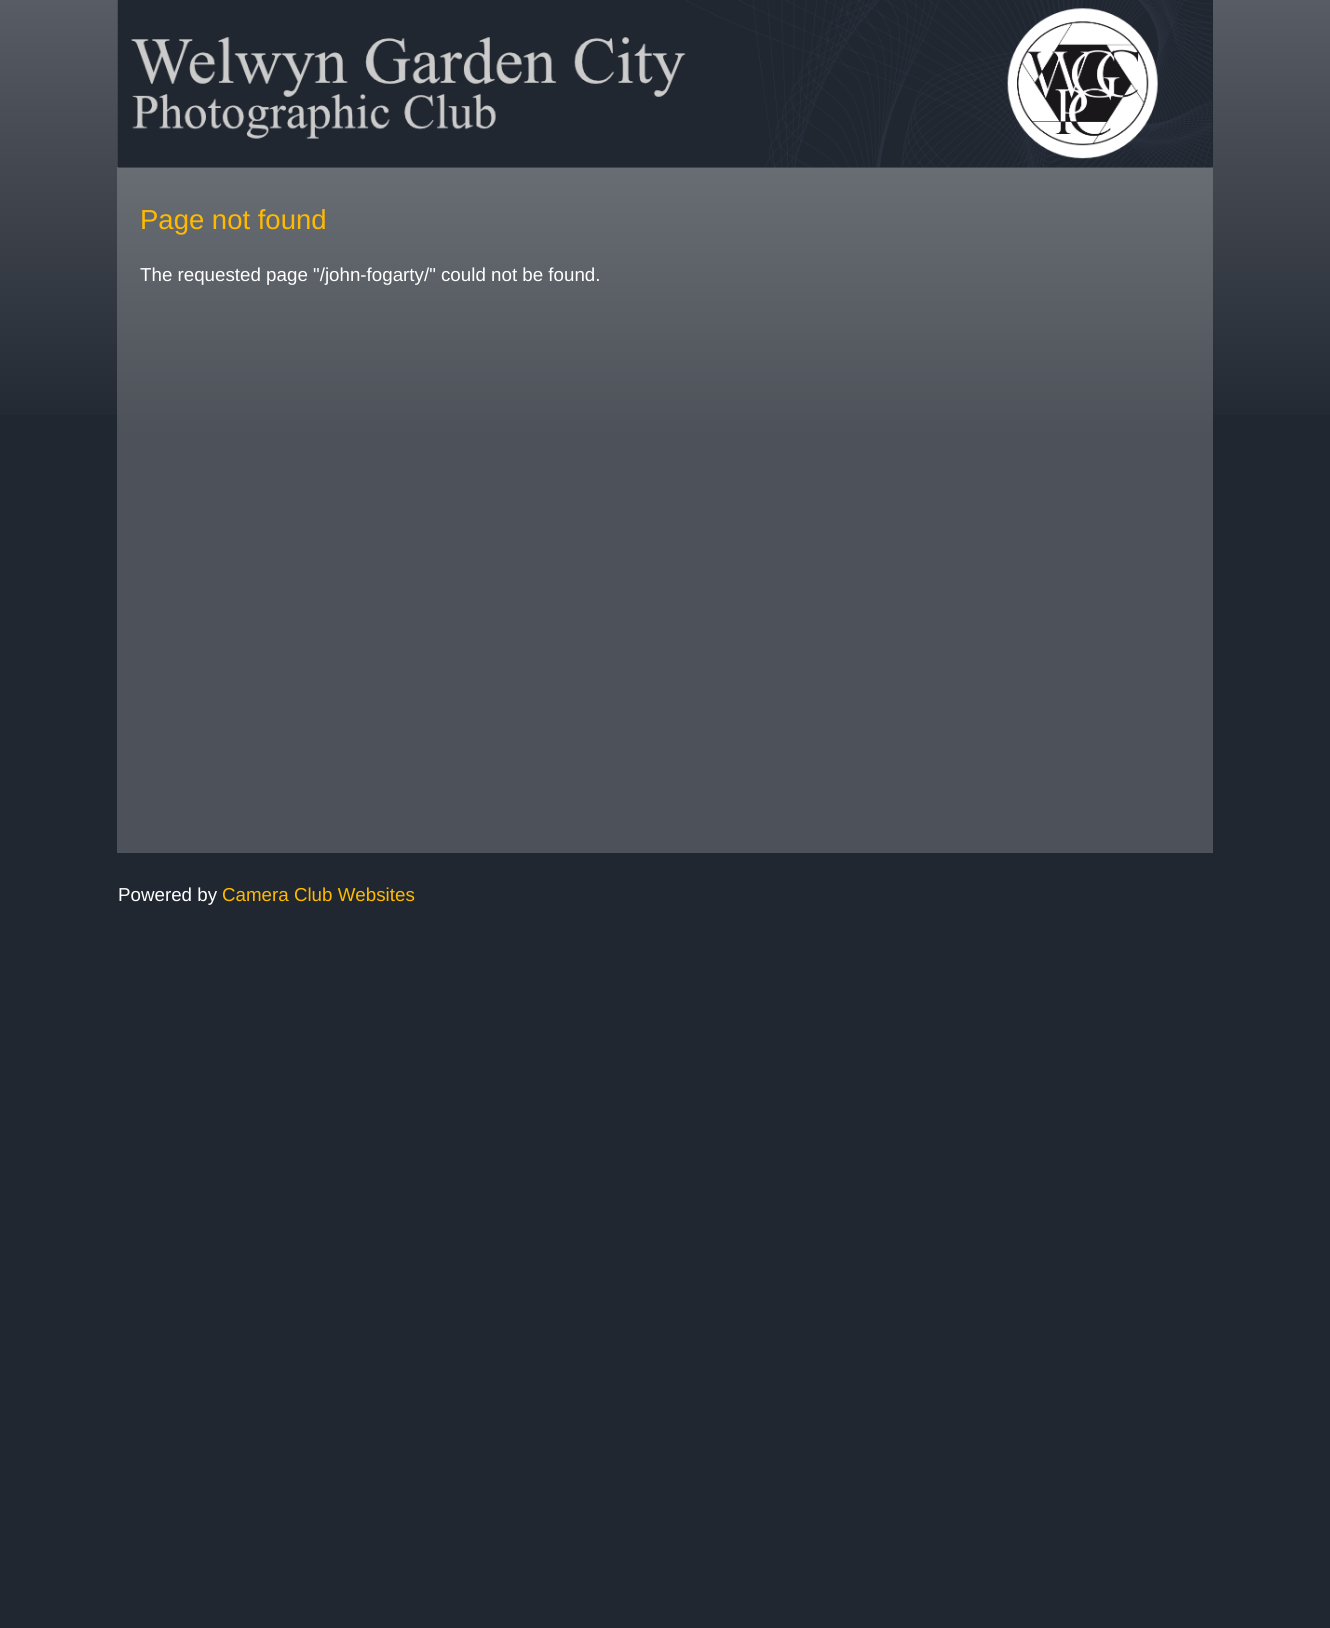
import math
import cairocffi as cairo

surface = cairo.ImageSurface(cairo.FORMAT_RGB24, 1330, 1628)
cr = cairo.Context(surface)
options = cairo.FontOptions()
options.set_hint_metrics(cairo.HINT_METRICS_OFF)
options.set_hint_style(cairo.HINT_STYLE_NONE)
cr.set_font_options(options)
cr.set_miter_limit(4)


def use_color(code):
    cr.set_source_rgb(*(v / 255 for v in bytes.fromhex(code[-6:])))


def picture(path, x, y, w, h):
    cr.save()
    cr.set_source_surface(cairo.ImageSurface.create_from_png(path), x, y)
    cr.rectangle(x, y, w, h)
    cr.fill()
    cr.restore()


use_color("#212731")
cr.paint()
gradient = cairo.LinearGradient(665, 0, 665, 926)
gradient.add_color_stop_rgba(0, 0.345, 0.361, 0.392, 1)
gradient.add_color_stop_rgba(0.47, 0.129, 0.153, 0.192, 1)
cr.set_source(gradient)
cr.rectangle(0, 0, 1330, 415)
cr.fill()
gradient = cairo.LinearGradient(665, 0, 665, 926)
gradient.add_color_stop_rgba(0, 0.475, 0.49, 0.514, 1)
gradient.add_color_stop_rgba(0.47, 0.302, 0.322, 0.353, 1)
cr.set_source(gradient)
cr.rectangle(117, 167, 1096, 686)
cr.fill()
use_color("#212731")
cr.rectangle(1212, 0, 1, 167)
cr.fill()
use_color("#4d525a")
cr.rectangle(118, 167, 1095, 1)
cr.fill()
picture("img1.png", 117, 0, 1095, 168)
cr.select_font_face("Liberation Sans")
cr.set_font_size(27.5)
use_color("#ffba00")
cr.move_to(140, 229)
cr.show_text("Page not found")
cr.set_font_size(18.75)
use_color("#ffffff")
cr.move_to(140, 281)
cr.show_text("The requested page \"/john-fogarty/\" could not be found.")
cr.move_to(118, 901)
cr.show_text("Powered by")
use_color("#ffba00")
cr.move_to(222, 901)
cr.show_text("Camera Club Websites")
surface.write_to_png("result.png")
